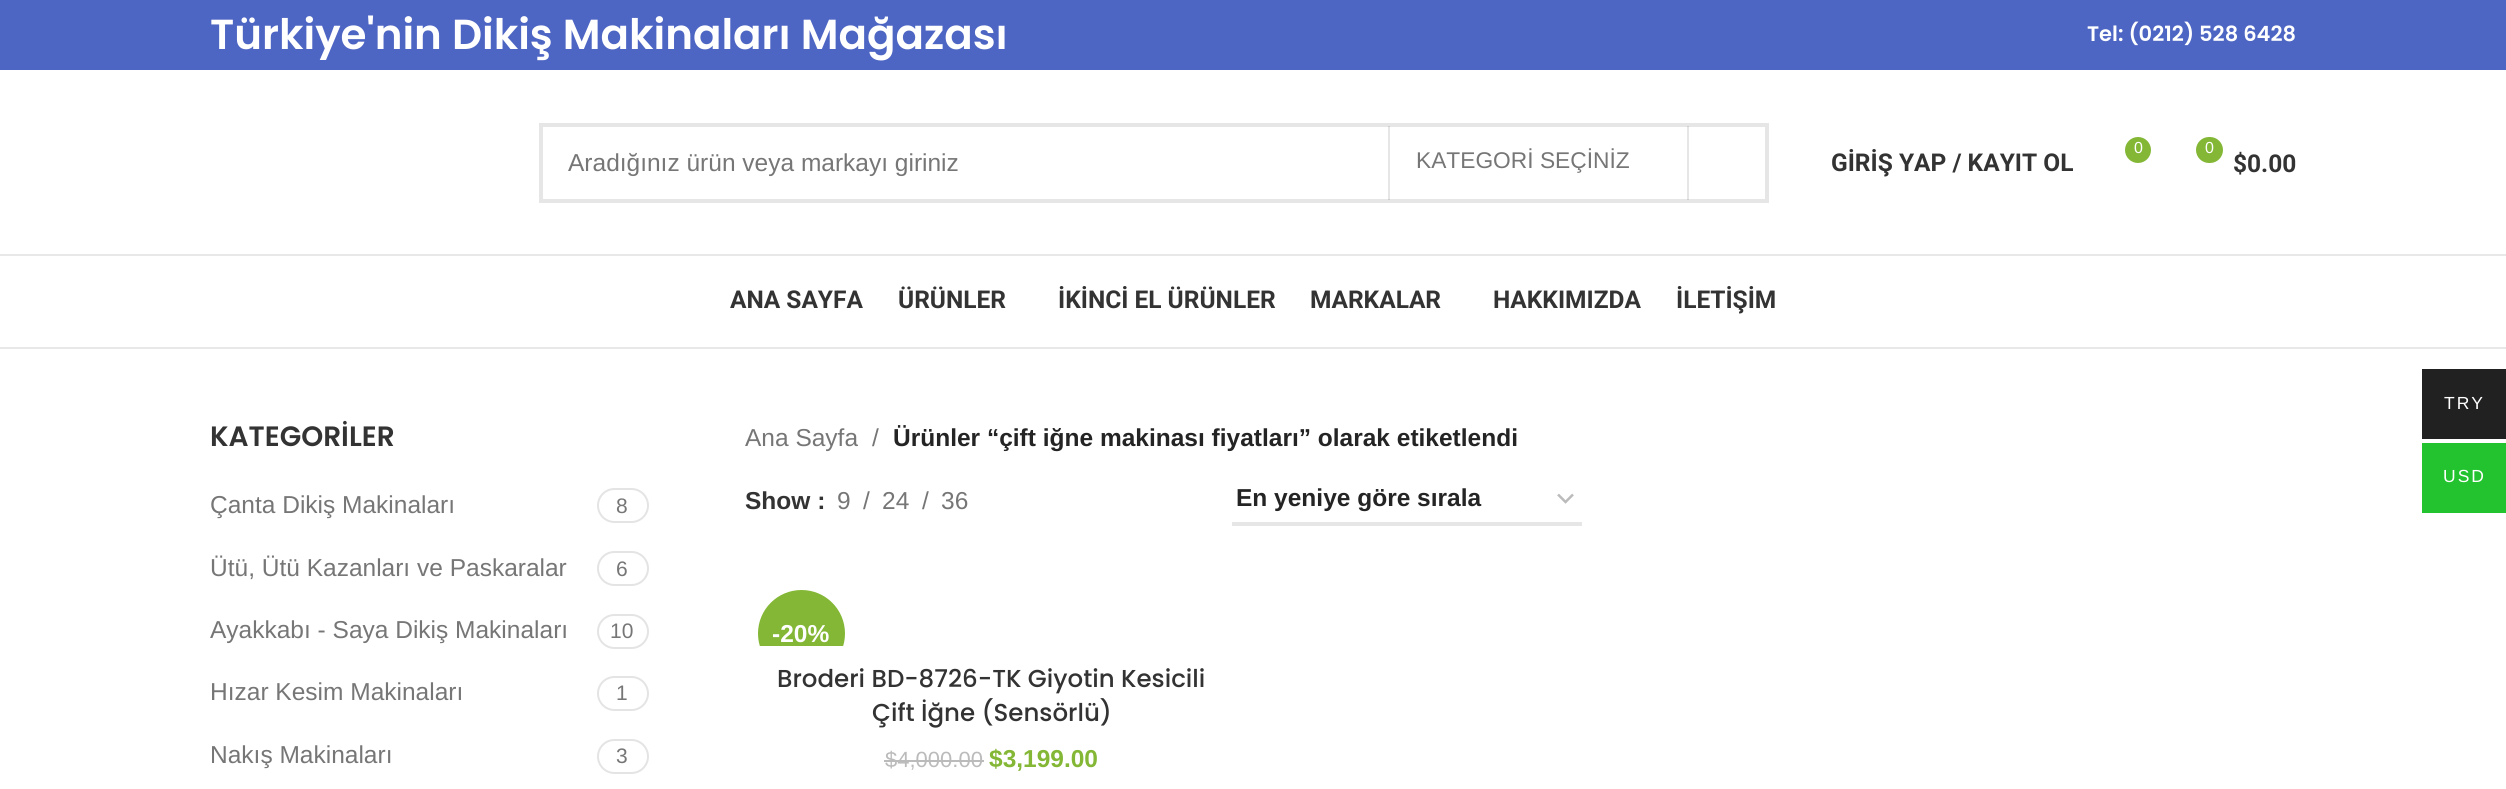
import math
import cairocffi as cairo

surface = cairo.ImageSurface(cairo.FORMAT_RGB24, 2506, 789)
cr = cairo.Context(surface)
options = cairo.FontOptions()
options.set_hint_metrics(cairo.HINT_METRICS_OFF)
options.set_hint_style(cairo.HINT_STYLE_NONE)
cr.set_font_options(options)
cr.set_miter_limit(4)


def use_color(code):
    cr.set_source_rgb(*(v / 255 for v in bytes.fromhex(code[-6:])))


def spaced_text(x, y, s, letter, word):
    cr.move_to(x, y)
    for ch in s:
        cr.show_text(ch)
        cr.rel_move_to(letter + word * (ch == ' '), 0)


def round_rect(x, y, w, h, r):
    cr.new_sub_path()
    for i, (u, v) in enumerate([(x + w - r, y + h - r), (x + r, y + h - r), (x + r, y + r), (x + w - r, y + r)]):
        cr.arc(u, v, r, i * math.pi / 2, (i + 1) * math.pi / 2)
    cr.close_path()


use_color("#ffffff")
cr.paint()
use_color("#4d65c3")
cr.rectangle(0, 0, 2506, 70)
cr.fill()
cr.select_font_face("Poppins SemiBold")
cr.set_font_size(42)
use_color("#ffffff")
cr.move_to(210, 49)
cr.show_text("Türkiye'nin Dikiş Makinaları Mağazası")
cr.set_font_size(21)
cr.move_to(2087, 41)
cr.show_text("Tel: (0212) 528 6428")
use_color("#e8e8e8")
cr.rectangle(0, 254, 2506, 2)
cr.fill()
cr.rectangle(541, 125, 1226, 76)
use_color("#e6e6e6")
cr.set_line_width(4)
cr.stroke()
cr.select_font_face("Liberation Sans")
cr.set_font_size(24.5)
use_color("#767676")
cr.move_to(568, 171)
cr.show_text("Aradığınız ürün veya markayı giriniz")
cr.set_source_rgba(0, 0, 0, 0.1)
cr.rectangle(1687, 126, 2, 74)
cr.fill()
cr.rectangle(1388, 126, 2, 74)
cr.fill()
cr.set_font_size(22.75)
use_color("#767676")
cr.move_to(1416, 168)
cr.show_text("KATEGORİ SEÇİNİZ")
cr.select_font_face("Roboto", cairo.FONT_SLANT_NORMAL, cairo.FONT_WEIGHT_BOLD)
cr.set_font_size(24.5)
use_color("#333333")
cr.move_to(1831, 171)
cr.show_text("GİRİŞ YAP / KAYIT OL")
use_color("#83b735")
cr.new_path()
cr.arc(2138, 150, 13, 0, 2 * math.pi)
cr.fill()
cr.select_font_face("Liberation Sans")
cr.set_font_size(16)
use_color("#ffffff")
cr.move_to(2134, 153)
cr.show_text("0")
use_color("#83b735")
round_rect(2196, 137, 27, 26, 13)
cr.fill()
use_color("#ffffff")
cr.move_to(2205, 153)
cr.show_text("0")
cr.select_font_face("Roboto", cairo.FONT_SLANT_NORMAL, cairo.FONT_WEIGHT_BOLD)
cr.set_font_size(24.5)
use_color("#333333")
cr.move_to(2233, 172)
cr.show_text("$0.00")
use_color("#e8e8e8")
cr.rectangle(0, 347, 2506, 2)
cr.fill()
use_color("#333333")
cr.move_to(730, 308)
cr.show_text("ANA SAYFA")
cr.move_to(898, 308)
cr.show_text("ÜRÜNLER")
cr.move_to(1058, 308)
cr.show_text("İKİNCİ EL ÜRÜNLER")
cr.move_to(1310, 308)
cr.show_text("MARKALAR")
cr.move_to(1493, 308)
cr.show_text("HAKKIMIZDA")
cr.move_to(1676, 308)
cr.show_text("İLETİŞİM")
cr.select_font_face("Poppins SemiBold")
cr.set_font_size(28)
cr.move_to(210, 446)
cr.show_text("KATEGORİLER")
cr.select_font_face("Liberation Sans")
cr.set_font_size(24.5)
use_color("#767676")
cr.move_to(210, 513)
cr.show_text("Çanta Dikiş Makinaları")
round_rect(598, 489, 50, 33, 16.5)
use_color("#e4e4e4")
cr.set_line_width(2)
cr.stroke()
cr.set_font_size(21)
use_color("#767676")
cr.move_to(616, 513)
cr.show_text("8")
cr.set_font_size(24.5)
cr.move_to(210, 576)
cr.show_text("Ütü, Ütü Kazanları ve Paskaralar")
round_rect(598, 552, 50, 33, 16.5)
use_color("#e4e4e4")
cr.stroke()
cr.set_font_size(21)
use_color("#767676")
cr.move_to(616, 576)
cr.show_text("6")
cr.set_font_size(24.5)
cr.move_to(210, 638)
cr.show_text("Ayakkabı - Saya Dikiş Makinaları")
round_rect(598, 615, 50, 33, 16.5)
use_color("#e4e4e4")
cr.stroke()
cr.set_font_size(21)
use_color("#767676")
cr.move_to(610, 638)
cr.show_text("10")
cr.set_font_size(24.5)
cr.move_to(210, 700)
cr.show_text("Hızar Kesim Makinaları")
round_rect(598, 677, 50, 33, 16.5)
use_color("#e4e4e4")
cr.stroke()
cr.set_font_size(21)
use_color("#767676")
cr.move_to(616, 700)
cr.show_text("1")
cr.set_font_size(24.5)
cr.move_to(210, 763)
cr.show_text("Nakış Makinaları")
round_rect(598, 740, 50, 33, 16.5)
use_color("#e4e4e4")
cr.stroke()
cr.set_font_size(21)
use_color("#767676")
cr.move_to(616, 763)
cr.show_text("3")
cr.set_font_size(24.5)
cr.move_to(745, 446)
cr.show_text("Ana Sayfa")
cr.move_to(872, 446)
cr.show_text("/")
cr.select_font_face("Liberation Sans", cairo.FONT_SLANT_NORMAL, cairo.FONT_WEIGHT_BOLD)
use_color("#242424")
cr.move_to(893, 446)
cr.show_text("Ürünler “çift iğne makinası fiyatları” olarak etiketlendi")
use_color("#333333")
cr.move_to(745, 509)
cr.show_text("Show :")
cr.select_font_face("Liberation Sans")
use_color("#767676")
cr.move_to(837, 509)
cr.show_text("9")
cr.move_to(863, 509)
cr.show_text("/")
cr.move_to(882, 509)
cr.show_text("24")
cr.move_to(922, 509)
cr.show_text("/")
cr.move_to(941, 509)
cr.show_text("36")
cr.new_path()
cr.move_to(1558, 494.5)
cr.line_to(1565.5, 502)
cr.line_to(1573, 494.5)
use_color("#bbbbbb")
cr.set_line_width(2.5)
cr.stroke()
use_color("#e6e6e6")
cr.rectangle(1232, 522, 350, 4)
cr.fill()
cr.select_font_face("Liberation Sans", cairo.FONT_SLANT_NORMAL, cairo.FONT_WEIGHT_BOLD)
use_color("#242424")
cr.move_to(1236, 506)
cr.show_text("En yeniye göre sırala")
cr.save()
cr.rectangle(746, 578, 493, 68)
cr.clip()
use_color("#83b735")
cr.arc(801.5, 633.5, 43.5, 0, 2 * math.pi)
cr.fill()
cr.restore()
use_color("#ffffff")
cr.move_to(772, 642)
cr.show_text("-20%")
cr.select_font_face("Poppins Medium")
use_color("#333333")
cr.move_to(777, 687)
cr.show_text("Broderi BD-8726-TK Giyotin Kesicili")
cr.move_to(872, 721)
cr.show_text("Çift İğne (Sensörlü)")
cr.select_font_face("Liberation Sans")
cr.set_font_size(22)
use_color("#bbbbbb")
cr.move_to(885, 767)
cr.show_text("$4,000.00")
cr.rectangle(884, 760, 100, 2)
cr.fill()
cr.select_font_face("Liberation Sans", cairo.FONT_SLANT_NORMAL, cairo.FONT_WEIGHT_BOLD)
cr.set_font_size(24.5)
use_color("#83b735")
cr.move_to(989, 767)
cr.show_text("$3,199.00")
use_color("#212121")
cr.rectangle(2422, 369, 84, 70)
cr.fill()
cr.select_font_face("Liberation Sans")
cr.set_font_size(17.5)
use_color("#ffffff")
spaced_text(2444, 409, "TRY", 2, 0)
use_color("#22c32f")
cr.rectangle(2422, 443, 84, 70)
cr.fill()
use_color("#ffffff")
spaced_text(2443, 482, "USD", 2, 0)
surface.write_to_png("result.png")
